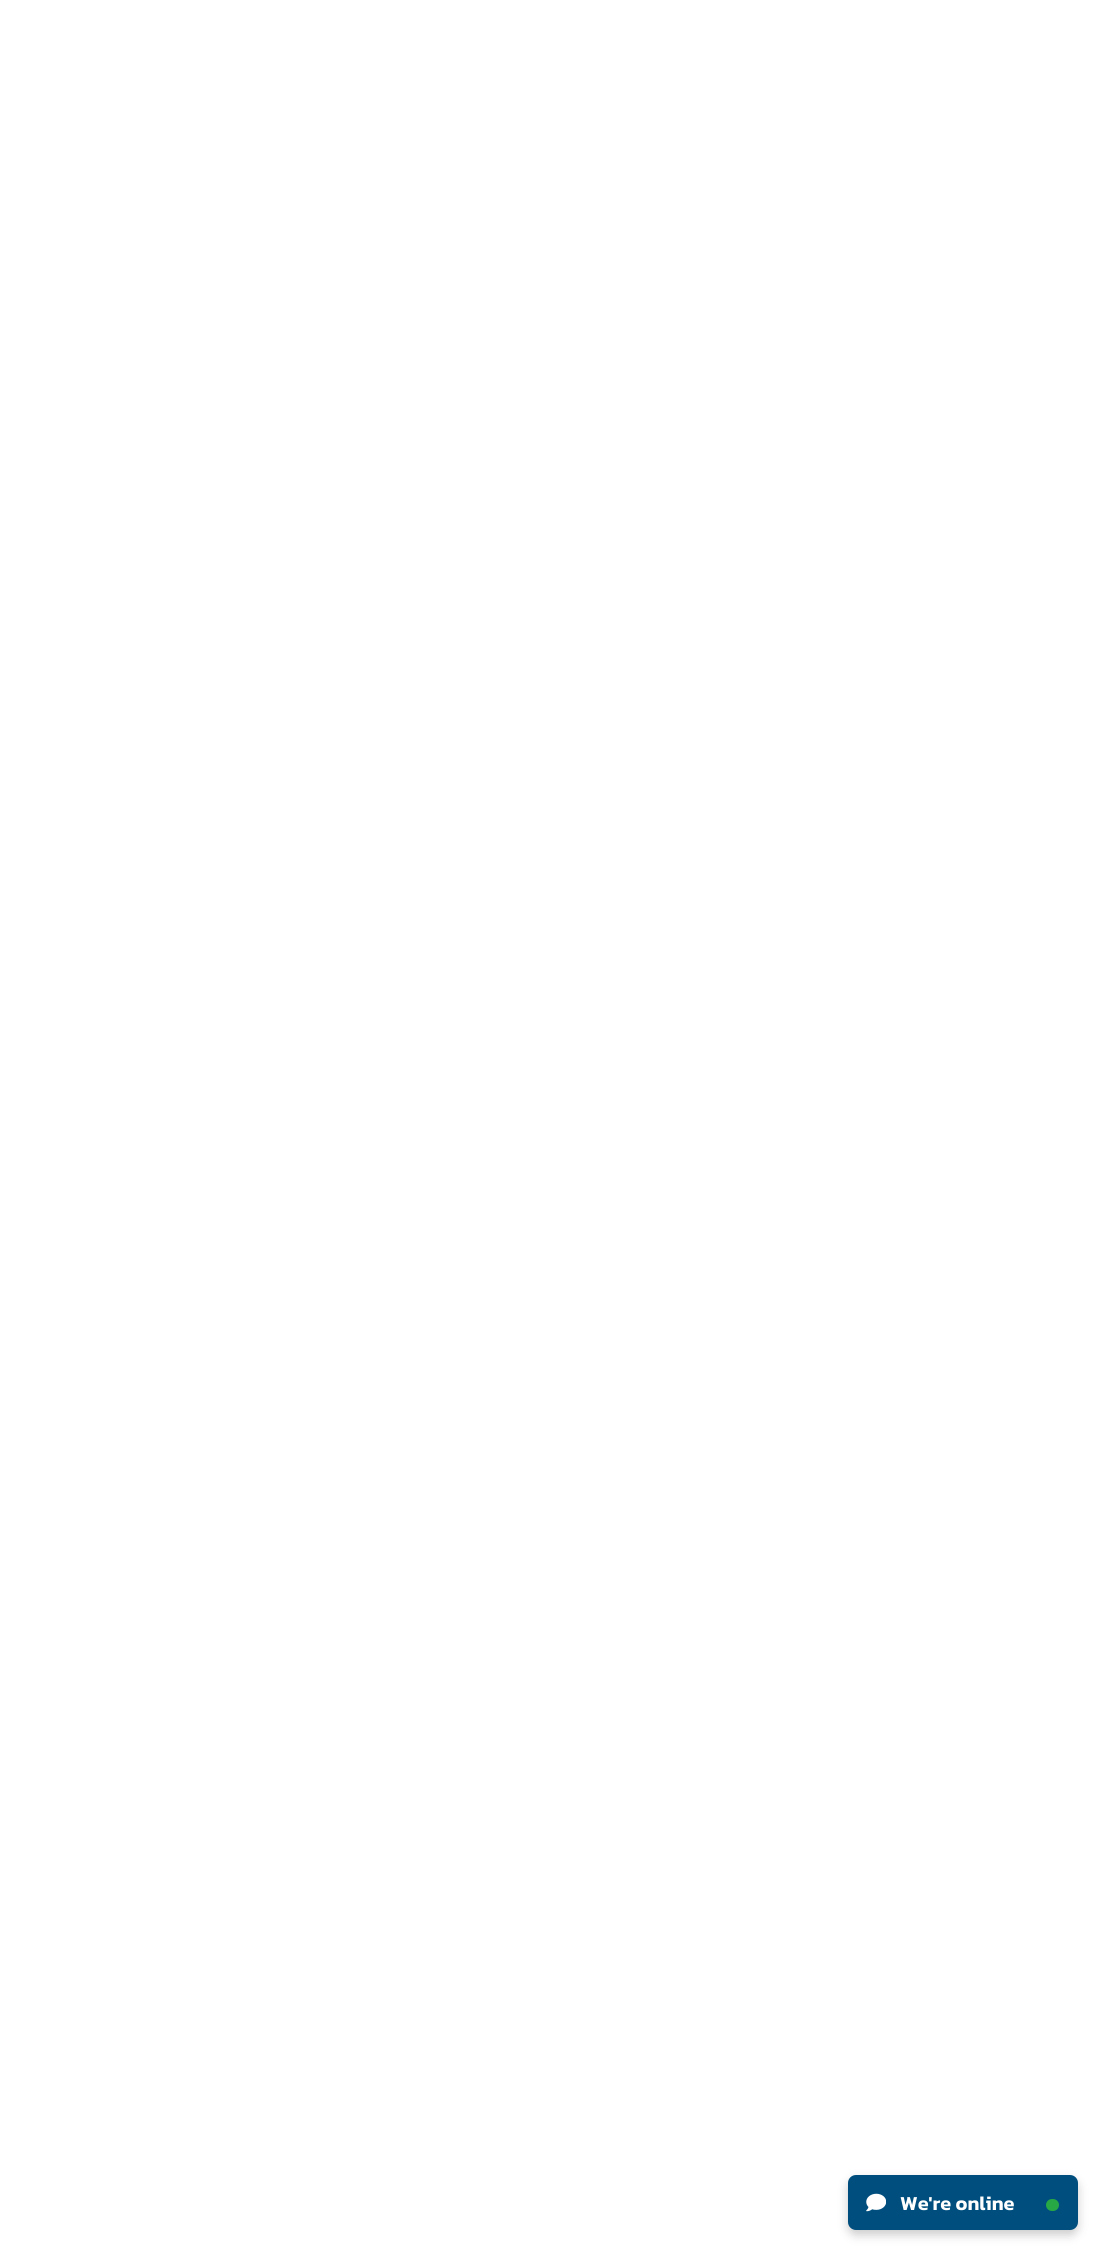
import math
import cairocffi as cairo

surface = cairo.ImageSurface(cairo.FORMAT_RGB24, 1102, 2254)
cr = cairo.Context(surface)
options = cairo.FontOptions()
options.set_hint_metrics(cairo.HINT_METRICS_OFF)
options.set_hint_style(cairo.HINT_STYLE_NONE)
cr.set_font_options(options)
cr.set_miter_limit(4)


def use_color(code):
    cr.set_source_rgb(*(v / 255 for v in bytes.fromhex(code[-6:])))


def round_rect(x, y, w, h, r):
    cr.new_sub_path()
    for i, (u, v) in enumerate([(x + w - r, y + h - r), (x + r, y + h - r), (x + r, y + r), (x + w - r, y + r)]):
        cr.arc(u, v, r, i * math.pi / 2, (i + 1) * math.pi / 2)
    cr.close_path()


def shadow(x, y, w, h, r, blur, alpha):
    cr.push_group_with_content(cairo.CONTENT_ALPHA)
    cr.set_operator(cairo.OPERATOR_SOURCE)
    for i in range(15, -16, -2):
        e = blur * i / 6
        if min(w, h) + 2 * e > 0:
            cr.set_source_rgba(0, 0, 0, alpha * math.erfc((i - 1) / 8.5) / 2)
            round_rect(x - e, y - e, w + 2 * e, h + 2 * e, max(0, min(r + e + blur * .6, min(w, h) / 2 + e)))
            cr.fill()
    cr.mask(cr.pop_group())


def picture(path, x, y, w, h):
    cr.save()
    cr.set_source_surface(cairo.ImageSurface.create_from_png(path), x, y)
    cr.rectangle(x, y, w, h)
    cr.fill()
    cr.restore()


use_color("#ffffff")
cr.paint()
use_color("#000000")
shadow(848, 2180, 230, 55, 8, 5, 0.2)
use_color("#004e7d")
round_rect(848, 2175, 230, 55, 8)
cr.fill()
picture("img1.png", 866, 2193, 20, 19)
cr.select_font_face("Kanit SemiBold")
cr.set_font_size(20)
use_color("#ffffff")
cr.move_to(900, 2210)
cr.show_text("We're online")
use_color("#28a745")
round_rect(1046, 2199, 13, 12, 6)
cr.fill()
surface.write_to_png("result.png")
